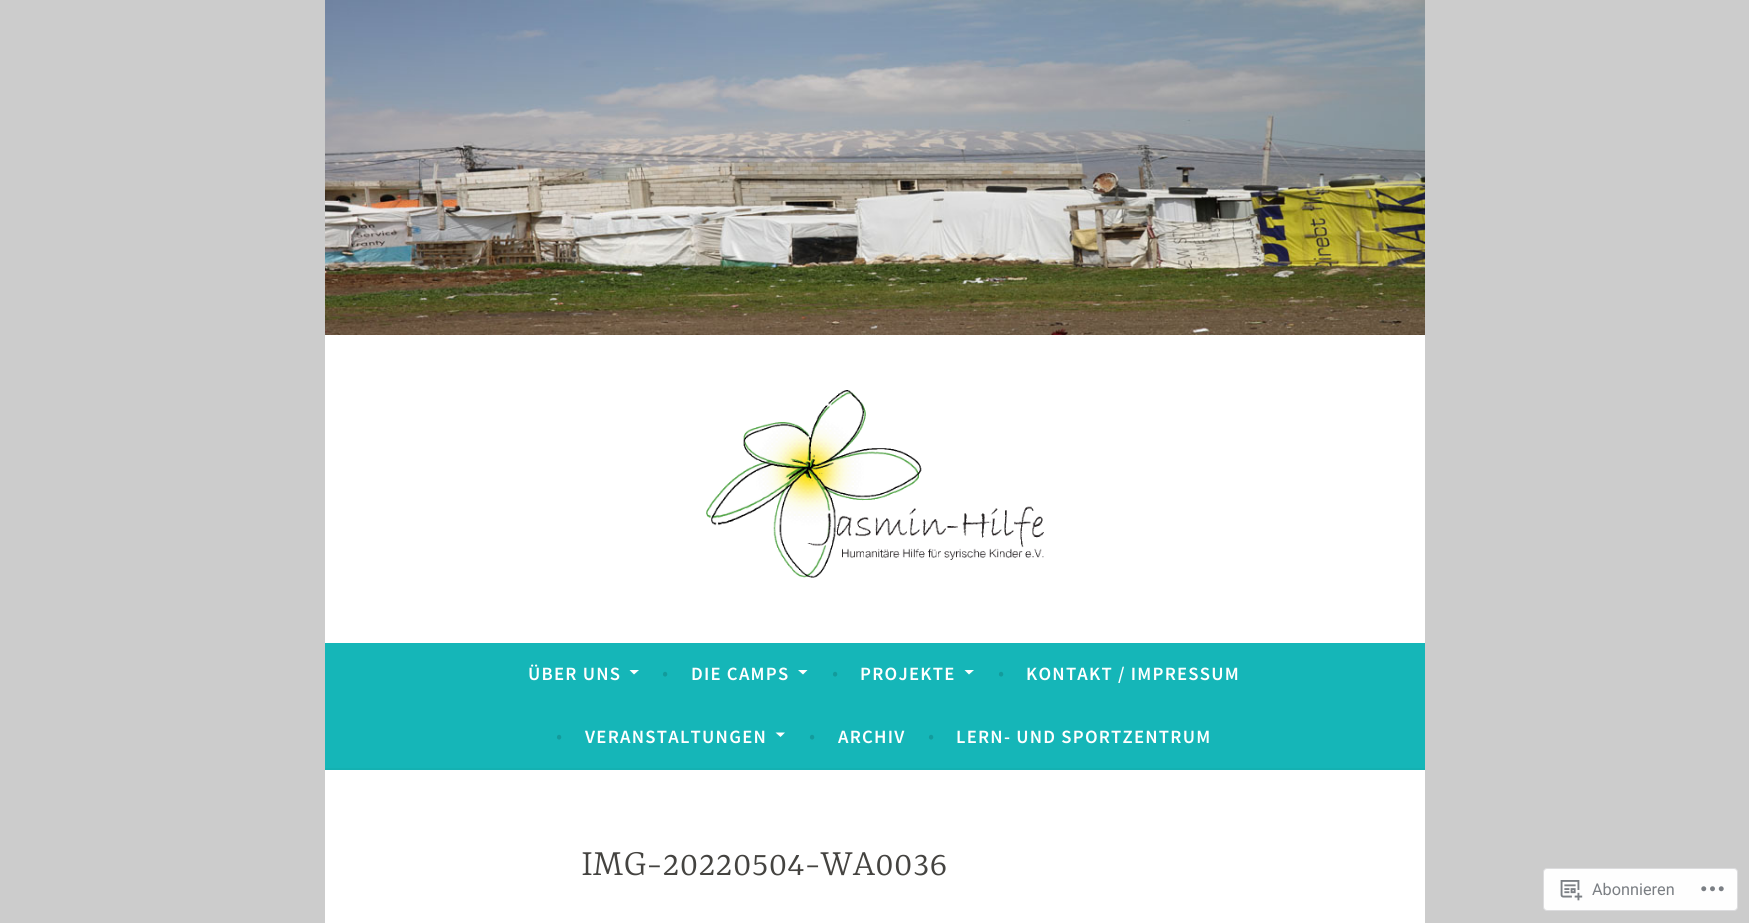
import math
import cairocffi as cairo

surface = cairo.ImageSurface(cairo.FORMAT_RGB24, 1749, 923)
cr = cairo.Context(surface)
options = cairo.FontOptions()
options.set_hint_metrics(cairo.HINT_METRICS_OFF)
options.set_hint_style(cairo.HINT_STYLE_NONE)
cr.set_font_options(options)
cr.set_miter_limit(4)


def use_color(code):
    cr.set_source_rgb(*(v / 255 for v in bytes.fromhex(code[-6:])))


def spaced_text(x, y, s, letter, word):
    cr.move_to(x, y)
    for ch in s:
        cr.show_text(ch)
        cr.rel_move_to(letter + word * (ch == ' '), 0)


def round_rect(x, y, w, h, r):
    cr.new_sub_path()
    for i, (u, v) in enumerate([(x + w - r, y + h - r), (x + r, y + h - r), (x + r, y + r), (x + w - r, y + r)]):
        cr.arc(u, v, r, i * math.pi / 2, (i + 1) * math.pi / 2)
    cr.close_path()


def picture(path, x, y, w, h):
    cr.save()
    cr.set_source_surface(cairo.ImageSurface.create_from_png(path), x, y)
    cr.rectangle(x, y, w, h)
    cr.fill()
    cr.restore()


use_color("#cccccc")
cr.paint()
picture("img1.png", 325, 0, 1100, 335)
use_color("#ffffff")
cr.rectangle(325, 335, 1100, 308)
cr.fill()
picture("img2.png", 706, 390, 338, 188)
use_color("#15b6b8")
cr.rectangle(325, 643, 1100, 125)
cr.fill()
use_color("#14b1b2")
cr.rectangle(325, 768, 1100, 2)
cr.fill()
cr.select_font_face("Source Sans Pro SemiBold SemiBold")
cr.set_font_size(18.75)
use_color("#ffffff")
spaced_text(528, 680, "ÜBER UNS", 1.25, 0)
cr.new_path()
cr.move_to(629.5, 670)
cr.line_to(639, 670)
cr.line_to(634, 674.5)
cr.close_path()
cr.fill()
cr.select_font_face("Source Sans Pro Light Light")
cr.set_font_size(22)
use_color("#129b9c")
cr.move_to(662, 680)
cr.show_text("•")
cr.select_font_face("Source Sans Pro SemiBold SemiBold")
cr.set_font_size(18.75)
use_color("#ffffff")
spaced_text(691, 680, "DIE CAMPS", 1.25, 0)
cr.new_path()
cr.move_to(798, 670)
cr.line_to(807.5, 670)
cr.line_to(803, 674.5)
cr.close_path()
cr.fill()
cr.select_font_face("Source Sans Pro Light Light")
cr.set_font_size(22)
use_color("#129b9c")
cr.move_to(832, 680)
cr.show_text("•")
cr.select_font_face("Source Sans Pro SemiBold SemiBold")
cr.set_font_size(18.75)
use_color("#ffffff")
spaced_text(860, 680, "PROJEKTE", 1.25, 0)
cr.new_path()
cr.move_to(964.5, 670)
cr.line_to(974, 670)
cr.line_to(969, 674.5)
cr.close_path()
cr.fill()
cr.select_font_face("Source Sans Pro Light Light")
cr.set_font_size(22)
use_color("#129b9c")
cr.move_to(998, 680)
cr.show_text("•")
cr.select_font_face("Source Sans Pro SemiBold SemiBold")
cr.set_font_size(18.75)
use_color("#ffffff")
spaced_text(1026, 680, "KONTAKT / IMPRESSUM", 1.25, 0)
cr.select_font_face("Source Sans Pro Light Light")
cr.set_font_size(22)
use_color("#129b9c")
cr.move_to(556, 743)
cr.show_text("•")
cr.select_font_face("Source Sans Pro SemiBold SemiBold")
cr.set_font_size(18.75)
use_color("#ffffff")
spaced_text(585, 743, "VERANSTALTUNGEN", 1.25, 0)
cr.new_path()
cr.move_to(775.5, 732.5)
cr.line_to(785, 732.5)
cr.line_to(780.5, 737)
cr.close_path()
cr.fill()
cr.select_font_face("Source Sans Pro Light Light")
cr.set_font_size(22)
use_color("#129b9c")
cr.move_to(809, 743)
cr.show_text("•")
cr.select_font_face("Source Sans Pro SemiBold SemiBold")
cr.set_font_size(18.75)
use_color("#ffffff")
spaced_text(838, 743, "ARCHIV", 1.25, 0)
cr.select_font_face("Source Sans Pro Light Light")
cr.set_font_size(22)
use_color("#129b9c")
cr.move_to(928, 743)
cr.show_text("•")
cr.select_font_face("Source Sans Pro SemiBold SemiBold")
cr.set_font_size(18.75)
use_color("#ffffff")
spaced_text(956, 743, "LERN- UND SPORTZENTRUM", 1.25, 0)
cr.rectangle(325, 770, 1100, 153)
cr.fill()
cr.select_font_face("Yrsa Light")
cr.set_font_size(40)
use_color("#444340")
cr.move_to(581, 875)
cr.show_text("IMG-20220504-WA0036")
use_color("#fefefe")
round_rect(1543.5, 868.5, 194, 42, 3.5)
cr.fill_preserve()
use_color("#dcdcde")
cr.set_line_width(1)
cr.stroke()
picture("img3.png", 1560, 880, 23, 21)
cr.select_font_face("Roboto")
cr.set_font_size(16.25)
use_color("#7a7e83")
cr.move_to(1592, 895)
cr.show_text("Abonnieren")
picture("img4.png", 1701, 886, 23, 6)
surface.write_to_png("result.png")
